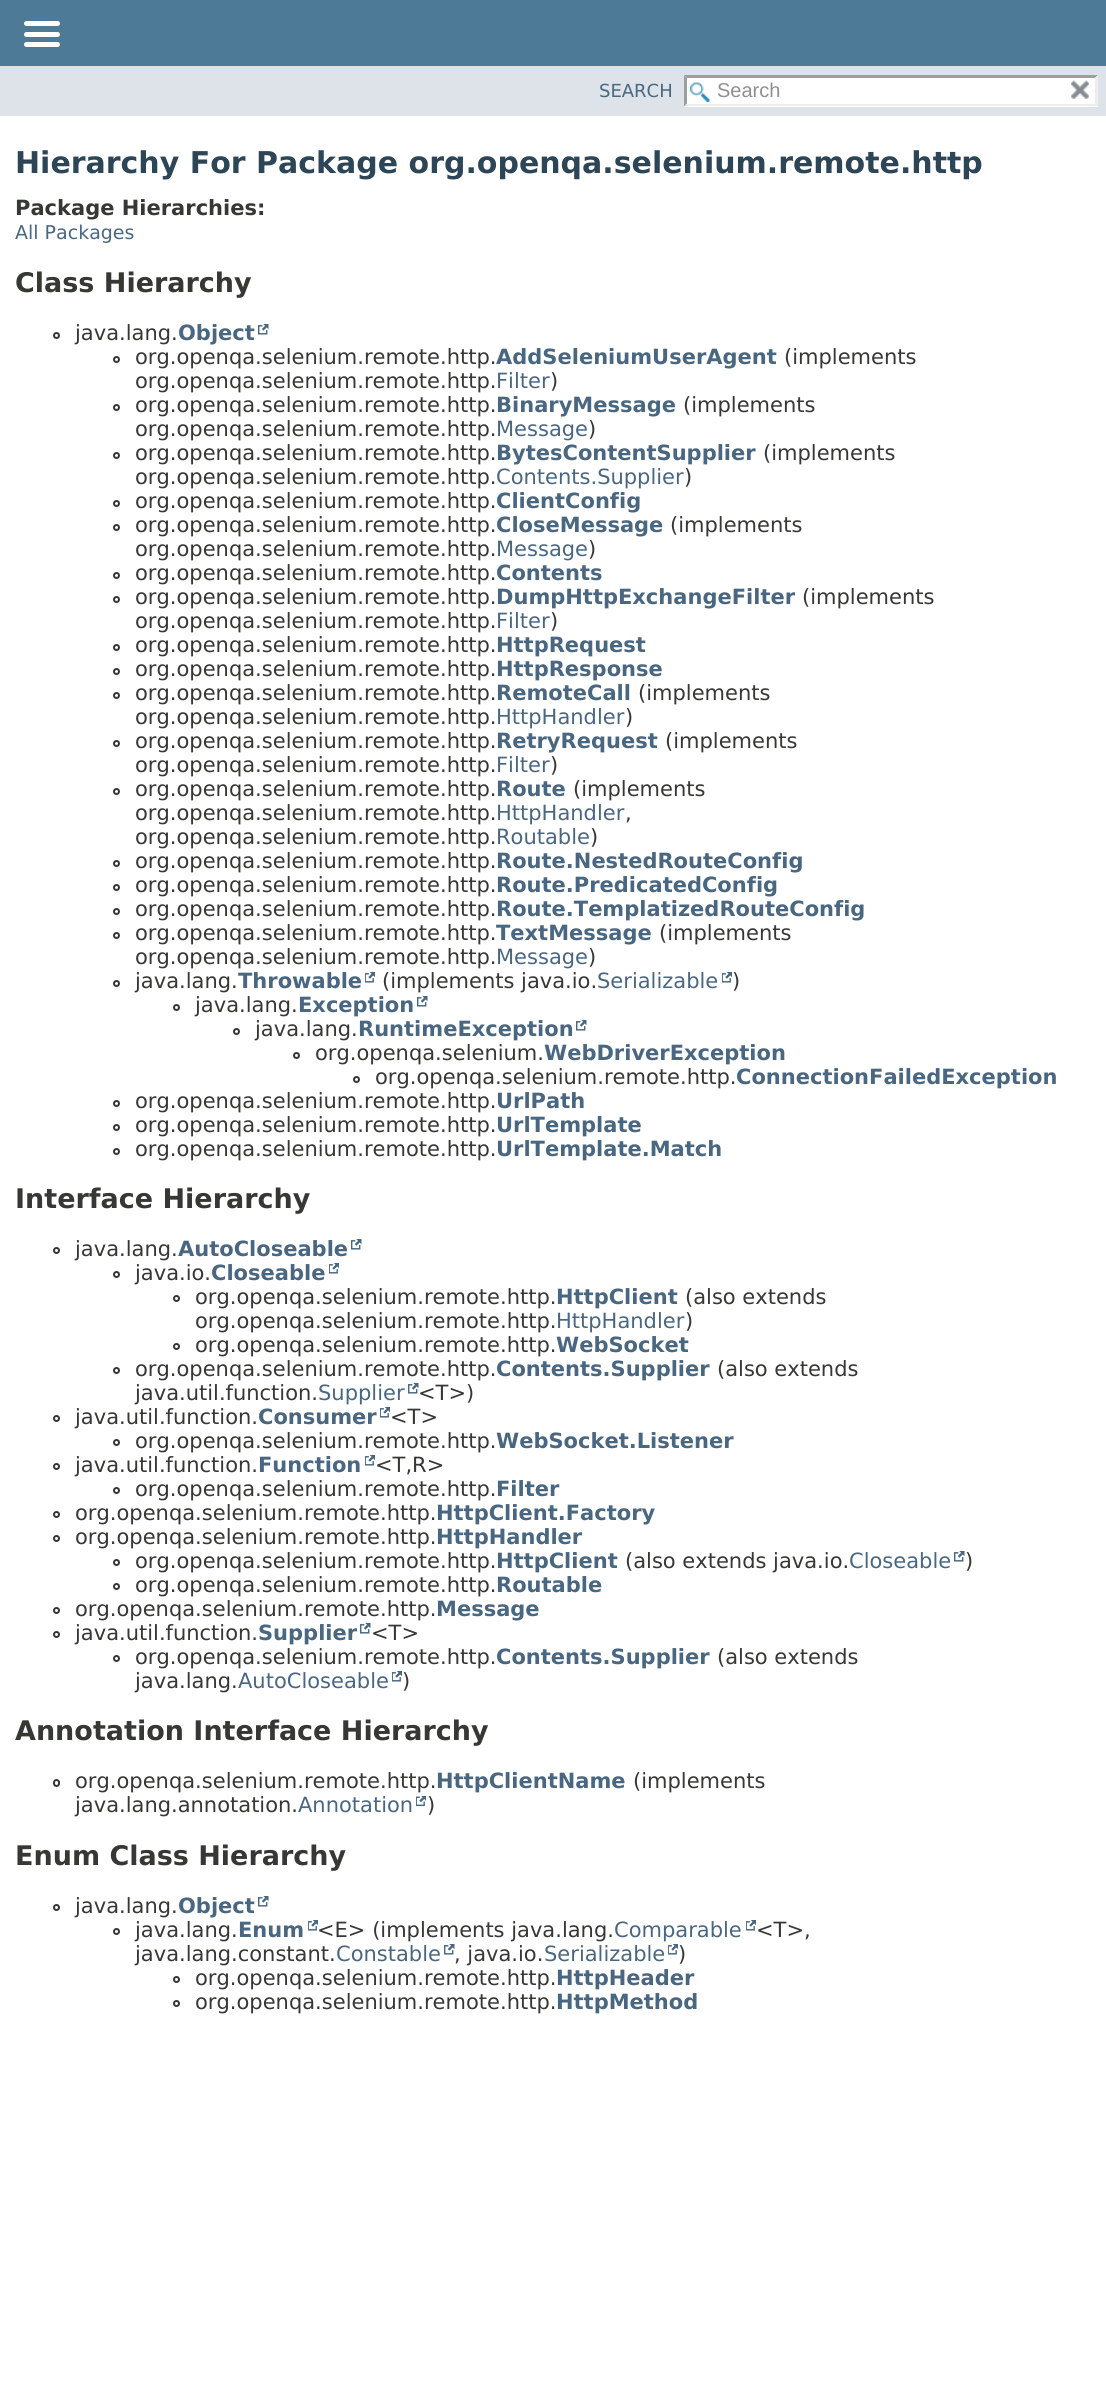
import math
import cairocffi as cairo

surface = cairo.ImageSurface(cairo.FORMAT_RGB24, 1106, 2405)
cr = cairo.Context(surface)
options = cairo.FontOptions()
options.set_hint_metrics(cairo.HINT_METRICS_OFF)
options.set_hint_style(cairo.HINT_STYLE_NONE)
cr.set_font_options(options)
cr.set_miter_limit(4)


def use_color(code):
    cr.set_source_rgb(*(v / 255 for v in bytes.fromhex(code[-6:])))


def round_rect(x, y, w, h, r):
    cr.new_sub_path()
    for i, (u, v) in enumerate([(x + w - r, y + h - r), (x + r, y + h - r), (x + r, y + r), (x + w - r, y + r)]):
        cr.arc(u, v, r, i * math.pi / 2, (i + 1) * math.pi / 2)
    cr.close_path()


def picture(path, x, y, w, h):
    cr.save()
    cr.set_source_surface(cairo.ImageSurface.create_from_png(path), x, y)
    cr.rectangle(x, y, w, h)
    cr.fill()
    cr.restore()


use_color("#ffffff")
cr.paint()
use_color("#4d7a97")
cr.rectangle(0, 0, 1106, 66)
cr.fill()
use_color("#ffffff")
round_rect(24, 21, 36, 5, 2.5)
cr.fill()
round_rect(24, 32, 36, 5, 2.5)
cr.fill()
round_rect(24, 42, 36, 5, 2.5)
cr.fill()
use_color("#dee3e9")
cr.rectangle(0, 66, 1106, 50)
cr.fill()
cr.select_font_face("DejaVu Sans")
cr.set_font_size(18)
use_color("#4a6782")
cr.move_to(599, 97)
cr.show_text("SEARCH")
use_color("#ffffff")
cr.rectangle(684, 75, 414, 32)
cr.fill()
picture("img1.png", 690, 82, 20, 20)
use_color("#9e9e9e")
cr.new_path()
cr.move_to(684, 75)
cr.line_to(1098, 75)
cr.line_to(1095, 78)
cr.line_to(687, 78)
cr.close_path()
cr.fill()
use_color("#ededed")
cr.new_path()
cr.move_to(1098, 75)
cr.line_to(1098, 106.5)
cr.line_to(1095, 103.5)
cr.line_to(1095, 78)
cr.close_path()
cr.fill()
cr.new_path()
cr.move_to(1098, 106)
cr.line_to(684, 106)
cr.line_to(687, 104)
cr.line_to(1095, 104)
cr.close_path()
cr.fill()
use_color("#9e9e9e")
cr.new_path()
cr.move_to(684, 106.5)
cr.line_to(684, 75)
cr.line_to(687, 78)
cr.line_to(687, 103.5)
cr.close_path()
cr.fill()
cr.select_font_face("Liberation Sans")
cr.set_font_size(20)
use_color("#909090")
cr.move_to(717, 97)
cr.show_text("Search")
picture("img2.png", 1071, 80, 18, 19)
cr.select_font_face("DejaVu Sans", cairo.FONT_SLANT_NORMAL, cairo.FONT_WEIGHT_BOLD)
cr.set_font_size(30)
use_color("#2c4557")
cr.move_to(15, 173)
cr.show_text("Hierarchy For Package org.openqa.selenium.remote.http")
cr.set_font_size(21)
use_color("#353833")
cr.move_to(15, 215)
cr.show_text("Package Hierarchies:")
cr.select_font_face("DejaVu Sans")
cr.set_font_size(19)
use_color("#4a6782")
cr.move_to(15, 239)
cr.show_text("All Packages")
cr.select_font_face("DejaVu Sans", cairo.FONT_SLANT_NORMAL, cairo.FONT_WEIGHT_BOLD)
cr.set_font_size(27)
use_color("#353833")
cr.move_to(15, 292)
cr.show_text("Class Hierarchy")
cr.new_path()
cr.arc(56.5, 335.5, 2.5, 0, 2 * math.pi)
cr.stroke()
cr.select_font_face("DejaVu Sans")
cr.set_font_size(21)
cr.move_to(75, 340)
cr.show_text("java.lang.")
cr.select_font_face("DejaVu Sans", cairo.FONT_SLANT_NORMAL, cairo.FONT_WEIGHT_BOLD)
use_color("#4a6782")
cr.move_to(178, 340)
cr.show_text("Object")
picture("img3.png", 258, 324, 11, 11)
cr.arc(116.5, 359.5, 2.5, 0, 2 * math.pi)
use_color("#353833")
cr.stroke()
cr.select_font_face("DejaVu Sans")
cr.move_to(135, 364)
cr.show_text("org.openqa.selenium.remote.http.")
cr.select_font_face("DejaVu Sans", cairo.FONT_SLANT_NORMAL, cairo.FONT_WEIGHT_BOLD)
use_color("#4a6782")
cr.move_to(496, 364)
cr.show_text("AddSeleniumUserAgent")
cr.select_font_face("DejaVu Sans")
use_color("#353833")
cr.move_to(784, 364)
cr.show_text("(implements")
cr.move_to(135, 388)
cr.show_text("org.openqa.selenium.remote.http.")
use_color("#4a6782")
cr.move_to(496, 388)
cr.show_text("Filter")
use_color("#353833")
cr.move_to(550, 388)
cr.show_text(")")
cr.new_path()
cr.arc(116.5, 407.5, 2.5, 0, 2 * math.pi)
cr.stroke()
cr.move_to(135, 412)
cr.show_text("org.openqa.selenium.remote.http.")
cr.select_font_face("DejaVu Sans", cairo.FONT_SLANT_NORMAL, cairo.FONT_WEIGHT_BOLD)
use_color("#4a6782")
cr.move_to(496, 412)
cr.show_text("BinaryMessage")
cr.select_font_face("DejaVu Sans")
use_color("#353833")
cr.move_to(683, 412)
cr.show_text("(implements")
cr.move_to(135, 436)
cr.show_text("org.openqa.selenium.remote.http.")
use_color("#4a6782")
cr.move_to(496, 436)
cr.show_text("Message")
use_color("#353833")
cr.move_to(588, 436)
cr.show_text(")")
cr.new_path()
cr.arc(116.5, 455.5, 2.5, 0, 2 * math.pi)
cr.stroke()
cr.move_to(135, 460)
cr.show_text("org.openqa.selenium.remote.http.")
cr.select_font_face("DejaVu Sans", cairo.FONT_SLANT_NORMAL, cairo.FONT_WEIGHT_BOLD)
use_color("#4a6782")
cr.move_to(496, 460)
cr.show_text("BytesContentSupplier")
cr.select_font_face("DejaVu Sans")
use_color("#353833")
cr.move_to(763, 460)
cr.show_text("(implements")
cr.move_to(135, 484)
cr.show_text("org.openqa.selenium.remote.http.")
use_color("#4a6782")
cr.move_to(496, 484)
cr.show_text("Contents.Supplier")
use_color("#353833")
cr.move_to(684, 484)
cr.show_text(")")
cr.new_path()
cr.arc(116.5, 503.5, 2.5, 0, 2 * math.pi)
cr.stroke()
cr.move_to(135, 508)
cr.show_text("org.openqa.selenium.remote.http.")
cr.select_font_face("DejaVu Sans", cairo.FONT_SLANT_NORMAL, cairo.FONT_WEIGHT_BOLD)
use_color("#4a6782")
cr.move_to(496, 508)
cr.show_text("ClientConfig")
cr.new_path()
cr.arc(116.5, 527.5, 2.5, 0, 2 * math.pi)
use_color("#353833")
cr.stroke()
cr.select_font_face("DejaVu Sans")
cr.move_to(135, 532)
cr.show_text("org.openqa.selenium.remote.http.")
cr.select_font_face("DejaVu Sans", cairo.FONT_SLANT_NORMAL, cairo.FONT_WEIGHT_BOLD)
use_color("#4a6782")
cr.move_to(496, 532)
cr.show_text("CloseMessage")
cr.select_font_face("DejaVu Sans")
use_color("#353833")
cr.move_to(670, 532)
cr.show_text("(implements")
cr.move_to(135, 556)
cr.show_text("org.openqa.selenium.remote.http.")
use_color("#4a6782")
cr.move_to(496, 556)
cr.show_text("Message")
use_color("#353833")
cr.move_to(588, 556)
cr.show_text(")")
cr.new_path()
cr.arc(116.5, 575.5, 2.5, 0, 2 * math.pi)
cr.stroke()
cr.move_to(135, 580)
cr.show_text("org.openqa.selenium.remote.http.")
cr.select_font_face("DejaVu Sans", cairo.FONT_SLANT_NORMAL, cairo.FONT_WEIGHT_BOLD)
use_color("#4a6782")
cr.move_to(496, 580)
cr.show_text("Contents")
cr.new_path()
cr.arc(116.5, 599.5, 2.5, 0, 2 * math.pi)
use_color("#353833")
cr.stroke()
cr.select_font_face("DejaVu Sans")
cr.move_to(135, 604)
cr.show_text("org.openqa.selenium.remote.http.")
cr.select_font_face("DejaVu Sans", cairo.FONT_SLANT_NORMAL, cairo.FONT_WEIGHT_BOLD)
use_color("#4a6782")
cr.move_to(496, 604)
cr.show_text("DumpHttpExchangeFilter")
cr.select_font_face("DejaVu Sans")
use_color("#353833")
cr.move_to(802, 604)
cr.show_text("(implements")
cr.move_to(135, 628)
cr.show_text("org.openqa.selenium.remote.http.")
use_color("#4a6782")
cr.move_to(496, 628)
cr.show_text("Filter")
use_color("#353833")
cr.move_to(550, 628)
cr.show_text(")")
cr.new_path()
cr.arc(116.5, 647.5, 2.5, 0, 2 * math.pi)
cr.stroke()
cr.move_to(135, 652)
cr.show_text("org.openqa.selenium.remote.http.")
cr.select_font_face("DejaVu Sans", cairo.FONT_SLANT_NORMAL, cairo.FONT_WEIGHT_BOLD)
use_color("#4a6782")
cr.move_to(496, 652)
cr.show_text("HttpRequest")
cr.new_path()
cr.arc(116.5, 671.5, 2.5, 0, 2 * math.pi)
use_color("#353833")
cr.stroke()
cr.select_font_face("DejaVu Sans")
cr.move_to(135, 676)
cr.show_text("org.openqa.selenium.remote.http.")
cr.select_font_face("DejaVu Sans", cairo.FONT_SLANT_NORMAL, cairo.FONT_WEIGHT_BOLD)
use_color("#4a6782")
cr.move_to(496, 676)
cr.show_text("HttpResponse")
cr.new_path()
cr.arc(116.5, 695.5, 2.5, 0, 2 * math.pi)
use_color("#353833")
cr.stroke()
cr.select_font_face("DejaVu Sans")
cr.move_to(135, 700)
cr.show_text("org.openqa.selenium.remote.http.")
cr.select_font_face("DejaVu Sans", cairo.FONT_SLANT_NORMAL, cairo.FONT_WEIGHT_BOLD)
use_color("#4a6782")
cr.move_to(496, 700)
cr.show_text("RemoteCall")
cr.select_font_face("DejaVu Sans")
use_color("#353833")
cr.move_to(638, 700)
cr.show_text("(implements")
cr.move_to(135, 724)
cr.show_text("org.openqa.selenium.remote.http.")
use_color("#4a6782")
cr.move_to(496, 724)
cr.show_text("HttpHandler")
use_color("#353833")
cr.move_to(625, 724)
cr.show_text(")")
cr.new_path()
cr.arc(116.5, 743.5, 2.5, 0, 2 * math.pi)
cr.stroke()
cr.move_to(135, 748)
cr.show_text("org.openqa.selenium.remote.http.")
cr.select_font_face("DejaVu Sans", cairo.FONT_SLANT_NORMAL, cairo.FONT_WEIGHT_BOLD)
use_color("#4a6782")
cr.move_to(496, 748)
cr.show_text("RetryRequest")
cr.select_font_face("DejaVu Sans")
use_color("#353833")
cr.move_to(665, 748)
cr.show_text("(implements")
cr.move_to(135, 772)
cr.show_text("org.openqa.selenium.remote.http.")
use_color("#4a6782")
cr.move_to(496, 772)
cr.show_text("Filter")
use_color("#353833")
cr.move_to(550, 772)
cr.show_text(")")
cr.new_path()
cr.arc(116.5, 791.5, 2.5, 0, 2 * math.pi)
cr.stroke()
cr.move_to(135, 796)
cr.show_text("org.openqa.selenium.remote.http.")
cr.select_font_face("DejaVu Sans", cairo.FONT_SLANT_NORMAL, cairo.FONT_WEIGHT_BOLD)
use_color("#4a6782")
cr.move_to(496, 796)
cr.show_text("Route")
cr.select_font_face("DejaVu Sans")
use_color("#353833")
cr.move_to(573, 796)
cr.show_text("(implements")
cr.move_to(135, 820)
cr.show_text("org.openqa.selenium.remote.http.")
use_color("#4a6782")
cr.move_to(496, 820)
cr.show_text("HttpHandler")
use_color("#353833")
cr.move_to(625, 820)
cr.show_text(",")
cr.move_to(135, 844)
cr.show_text("org.openqa.selenium.remote.http.")
use_color("#4a6782")
cr.move_to(496, 844)
cr.show_text("Routable")
use_color("#353833")
cr.move_to(590, 844)
cr.show_text(")")
cr.new_path()
cr.arc(116.5, 863.5, 2.5, 0, 2 * math.pi)
cr.stroke()
cr.move_to(135, 868)
cr.show_text("org.openqa.selenium.remote.http.")
cr.select_font_face("DejaVu Sans", cairo.FONT_SLANT_NORMAL, cairo.FONT_WEIGHT_BOLD)
use_color("#4a6782")
cr.move_to(496, 868)
cr.show_text("Route.NestedRouteConfig")
cr.new_path()
cr.arc(116.5, 887.5, 2.5, 0, 2 * math.pi)
use_color("#353833")
cr.stroke()
cr.select_font_face("DejaVu Sans")
cr.move_to(135, 892)
cr.show_text("org.openqa.selenium.remote.http.")
cr.select_font_face("DejaVu Sans", cairo.FONT_SLANT_NORMAL, cairo.FONT_WEIGHT_BOLD)
use_color("#4a6782")
cr.move_to(496, 892)
cr.show_text("Route.PredicatedConfig")
cr.new_path()
cr.arc(116.5, 911.5, 2.5, 0, 2 * math.pi)
use_color("#353833")
cr.stroke()
cr.select_font_face("DejaVu Sans")
cr.move_to(135, 916)
cr.show_text("org.openqa.selenium.remote.http.")
cr.select_font_face("DejaVu Sans", cairo.FONT_SLANT_NORMAL, cairo.FONT_WEIGHT_BOLD)
use_color("#4a6782")
cr.move_to(496, 916)
cr.show_text("Route.TemplatizedRouteConfig")
cr.new_path()
cr.arc(116.5, 935.5, 2.5, 0, 2 * math.pi)
use_color("#353833")
cr.stroke()
cr.select_font_face("DejaVu Sans")
cr.move_to(135, 940)
cr.show_text("org.openqa.selenium.remote.http.")
cr.select_font_face("DejaVu Sans", cairo.FONT_SLANT_NORMAL, cairo.FONT_WEIGHT_BOLD)
use_color("#4a6782")
cr.move_to(496, 940)
cr.show_text("TextMessage")
cr.select_font_face("DejaVu Sans")
use_color("#353833")
cr.move_to(659, 940)
cr.show_text("(implements")
cr.move_to(135, 964)
cr.show_text("org.openqa.selenium.remote.http.")
use_color("#4a6782")
cr.move_to(496, 964)
cr.show_text("Message")
use_color("#353833")
cr.move_to(588, 964)
cr.show_text(")")
cr.new_path()
cr.arc(116.5, 983.5, 2.5, 0, 2 * math.pi)
cr.stroke()
cr.move_to(135, 988)
cr.show_text("java.lang.")
cr.select_font_face("DejaVu Sans", cairo.FONT_SLANT_NORMAL, cairo.FONT_WEIGHT_BOLD)
use_color("#4a6782")
cr.move_to(238, 988)
cr.show_text("Throwable")
picture("img4.png", 365, 972, 10, 11)
cr.select_font_face("DejaVu Sans")
use_color("#353833")
cr.move_to(382, 988)
cr.show_text("(implements java.io.")
use_color("#4a6782")
cr.move_to(597, 988)
cr.show_text("Serializable")
picture("img4.png", 722, 972, 10, 11)
use_color("#353833")
cr.move_to(732, 988)
cr.show_text(")")
cr.new_path()
cr.arc(176.5, 1007.5, 2.5, 0, 2 * math.pi)
cr.stroke()
cr.move_to(195, 1012)
cr.show_text("java.lang.")
cr.select_font_face("DejaVu Sans", cairo.FONT_SLANT_NORMAL, cairo.FONT_WEIGHT_BOLD)
use_color("#4a6782")
cr.move_to(298, 1012)
cr.show_text("Exception")
picture("img3.png", 417, 996, 11, 11)
cr.arc(236.5, 1031.5, 2.5, 0, 2 * math.pi)
use_color("#353833")
cr.stroke()
cr.select_font_face("DejaVu Sans")
cr.move_to(255, 1036)
cr.show_text("java.lang.")
cr.select_font_face("DejaVu Sans", cairo.FONT_SLANT_NORMAL, cairo.FONT_WEIGHT_BOLD)
use_color("#4a6782")
cr.move_to(358, 1036)
cr.show_text("RuntimeException")
picture("img3.png", 576, 1020, 11, 11)
cr.arc(296.5, 1055.5, 2.5, 0, 2 * math.pi)
use_color("#353833")
cr.stroke()
cr.select_font_face("DejaVu Sans")
cr.move_to(315, 1060)
cr.show_text("org.openqa.selenium.")
cr.select_font_face("DejaVu Sans", cairo.FONT_SLANT_NORMAL, cairo.FONT_WEIGHT_BOLD)
use_color("#4a6782")
cr.move_to(544, 1060)
cr.show_text("WebDriverException")
cr.new_path()
cr.arc(356.5, 1079.5, 2.5, 0, 2 * math.pi)
use_color("#353833")
cr.stroke()
cr.select_font_face("DejaVu Sans")
cr.move_to(375, 1084)
cr.show_text("org.openqa.selenium.remote.http.")
cr.select_font_face("DejaVu Sans", cairo.FONT_SLANT_NORMAL, cairo.FONT_WEIGHT_BOLD)
use_color("#4a6782")
cr.move_to(736, 1084)
cr.show_text("ConnectionFailedException")
cr.new_path()
cr.arc(116.5, 1103.5, 2.5, 0, 2 * math.pi)
use_color("#353833")
cr.stroke()
cr.select_font_face("DejaVu Sans")
cr.move_to(135, 1108)
cr.show_text("org.openqa.selenium.remote.http.")
cr.select_font_face("DejaVu Sans", cairo.FONT_SLANT_NORMAL, cairo.FONT_WEIGHT_BOLD)
use_color("#4a6782")
cr.move_to(496, 1108)
cr.show_text("UrlPath")
cr.new_path()
cr.arc(116.5, 1127.5, 2.5, 0, 2 * math.pi)
use_color("#353833")
cr.stroke()
cr.select_font_face("DejaVu Sans")
cr.move_to(135, 1132)
cr.show_text("org.openqa.selenium.remote.http.")
cr.select_font_face("DejaVu Sans", cairo.FONT_SLANT_NORMAL, cairo.FONT_WEIGHT_BOLD)
use_color("#4a6782")
cr.move_to(496, 1132)
cr.show_text("UrlTemplate")
cr.new_path()
cr.arc(116.5, 1151.5, 2.5, 0, 2 * math.pi)
use_color("#353833")
cr.stroke()
cr.select_font_face("DejaVu Sans")
cr.move_to(135, 1156)
cr.show_text("org.openqa.selenium.remote.http.")
cr.select_font_face("DejaVu Sans", cairo.FONT_SLANT_NORMAL, cairo.FONT_WEIGHT_BOLD)
use_color("#4a6782")
cr.move_to(496, 1156)
cr.show_text("UrlTemplate.Match")
cr.set_font_size(27)
use_color("#353833")
cr.move_to(15, 1208)
cr.show_text("Interface Hierarchy")
cr.new_path()
cr.arc(56.5, 1250.5, 2.5, 0, 2 * math.pi)
cr.stroke()
cr.select_font_face("DejaVu Sans")
cr.set_font_size(21)
cr.move_to(75, 1256)
cr.show_text("java.lang.")
cr.select_font_face("DejaVu Sans", cairo.FONT_SLANT_NORMAL, cairo.FONT_WEIGHT_BOLD)
use_color("#4a6782")
cr.move_to(178, 1256)
cr.show_text("AutoCloseable")
picture("img3.png", 351, 1239, 11, 11)
cr.arc(116.5, 1274.5, 2.5, 0, 2 * math.pi)
use_color("#353833")
cr.stroke()
cr.select_font_face("DejaVu Sans")
cr.move_to(135, 1280)
cr.show_text("java.io.")
cr.select_font_face("DejaVu Sans", cairo.FONT_SLANT_NORMAL, cairo.FONT_WEIGHT_BOLD)
use_color("#4a6782")
cr.move_to(211, 1280)
cr.show_text("Closeable")
picture("img4.png", 329, 1263, 10, 11)
cr.arc(176.5, 1298.5, 2.5, 0, 2 * math.pi)
use_color("#353833")
cr.stroke()
cr.select_font_face("DejaVu Sans")
cr.move_to(195, 1304)
cr.show_text("org.openqa.selenium.remote.http.")
cr.select_font_face("DejaVu Sans", cairo.FONT_SLANT_NORMAL, cairo.FONT_WEIGHT_BOLD)
use_color("#4a6782")
cr.move_to(556, 1304)
cr.show_text("HttpClient")
cr.select_font_face("DejaVu Sans")
use_color("#353833")
cr.move_to(685, 1304)
cr.show_text("(also extends")
cr.move_to(195, 1328)
cr.show_text("org.openqa.selenium.remote.http.")
use_color("#4a6782")
cr.move_to(556, 1328)
cr.show_text("HttpHandler")
use_color("#353833")
cr.move_to(685, 1328)
cr.show_text(")")
cr.new_path()
cr.arc(176.5, 1346.5, 2.5, 0, 2 * math.pi)
cr.stroke()
cr.move_to(195, 1352)
cr.show_text("org.openqa.selenium.remote.http.")
cr.select_font_face("DejaVu Sans", cairo.FONT_SLANT_NORMAL, cairo.FONT_WEIGHT_BOLD)
use_color("#4a6782")
cr.move_to(556, 1352)
cr.show_text("WebSocket")
cr.new_path()
cr.arc(116.5, 1370.5, 2.5, 0, 2 * math.pi)
use_color("#353833")
cr.stroke()
cr.select_font_face("DejaVu Sans")
cr.move_to(135, 1376)
cr.show_text("org.openqa.selenium.remote.http.")
cr.select_font_face("DejaVu Sans", cairo.FONT_SLANT_NORMAL, cairo.FONT_WEIGHT_BOLD)
use_color("#4a6782")
cr.move_to(496, 1376)
cr.show_text("Contents.Supplier")
cr.select_font_face("DejaVu Sans")
use_color("#353833")
cr.move_to(717, 1376)
cr.show_text("(also extends")
cr.move_to(135, 1400)
cr.show_text("java.util.function.")
use_color("#4a6782")
cr.move_to(318, 1400)
cr.show_text("Supplier")
picture("img3.png", 408, 1383, 11, 11)
use_color("#353833")
cr.move_to(418, 1400)
cr.show_text("<T>)")
cr.new_path()
cr.arc(56.5, 1418.5, 2.5, 0, 2 * math.pi)
cr.stroke()
cr.move_to(75, 1424)
cr.show_text("java.util.function.")
cr.select_font_face("DejaVu Sans", cairo.FONT_SLANT_NORMAL, cairo.FONT_WEIGHT_BOLD)
use_color("#4a6782")
cr.move_to(258, 1424)
cr.show_text("Consumer")
picture("img4.png", 380, 1407, 10, 11)
cr.select_font_face("DejaVu Sans")
use_color("#353833")
cr.move_to(390, 1424)
cr.show_text("<T>")
cr.new_path()
cr.arc(116.5, 1442.5, 2.5, 0, 2 * math.pi)
cr.stroke()
cr.move_to(135, 1448)
cr.show_text("org.openqa.selenium.remote.http.")
cr.select_font_face("DejaVu Sans", cairo.FONT_SLANT_NORMAL, cairo.FONT_WEIGHT_BOLD)
use_color("#4a6782")
cr.move_to(496, 1448)
cr.show_text("WebSocket.Listener")
cr.new_path()
cr.arc(56.5, 1466.5, 2.5, 0, 2 * math.pi)
use_color("#353833")
cr.stroke()
cr.select_font_face("DejaVu Sans")
cr.move_to(75, 1472)
cr.show_text("java.util.function.")
cr.select_font_face("DejaVu Sans", cairo.FONT_SLANT_NORMAL, cairo.FONT_WEIGHT_BOLD)
use_color("#4a6782")
cr.move_to(258, 1472)
cr.show_text("Function")
picture("img4.png", 365, 1455, 10, 11)
cr.select_font_face("DejaVu Sans")
use_color("#353833")
cr.move_to(375, 1472)
cr.show_text("<T,R>")
cr.new_path()
cr.arc(116.5, 1490.5, 2.5, 0, 2 * math.pi)
cr.stroke()
cr.move_to(135, 1496)
cr.show_text("org.openqa.selenium.remote.http.")
cr.select_font_face("DejaVu Sans", cairo.FONT_SLANT_NORMAL, cairo.FONT_WEIGHT_BOLD)
use_color("#4a6782")
cr.move_to(496, 1496)
cr.show_text("Filter")
cr.new_path()
cr.arc(56.5, 1514.5, 2.5, 0, 2 * math.pi)
use_color("#353833")
cr.stroke()
cr.select_font_face("DejaVu Sans")
cr.move_to(75, 1520)
cr.show_text("org.openqa.selenium.remote.http.")
cr.select_font_face("DejaVu Sans", cairo.FONT_SLANT_NORMAL, cairo.FONT_WEIGHT_BOLD)
use_color("#4a6782")
cr.move_to(436, 1520)
cr.show_text("HttpClient.Factory")
cr.new_path()
cr.arc(56.5, 1538.5, 2.5, 0, 2 * math.pi)
use_color("#353833")
cr.stroke()
cr.select_font_face("DejaVu Sans")
cr.move_to(75, 1544)
cr.show_text("org.openqa.selenium.remote.http.")
cr.select_font_face("DejaVu Sans", cairo.FONT_SLANT_NORMAL, cairo.FONT_WEIGHT_BOLD)
use_color("#4a6782")
cr.move_to(436, 1544)
cr.show_text("HttpHandler")
cr.new_path()
cr.arc(116.5, 1562.5, 2.5, 0, 2 * math.pi)
use_color("#353833")
cr.stroke()
cr.select_font_face("DejaVu Sans")
cr.move_to(135, 1568)
cr.show_text("org.openqa.selenium.remote.http.")
cr.select_font_face("DejaVu Sans", cairo.FONT_SLANT_NORMAL, cairo.FONT_WEIGHT_BOLD)
use_color("#4a6782")
cr.move_to(496, 1568)
cr.show_text("HttpClient")
cr.select_font_face("DejaVu Sans")
use_color("#353833")
cr.move_to(625, 1568)
cr.show_text("(also extends java.io.")
use_color("#4a6782")
cr.move_to(849, 1568)
cr.show_text("Closeable")
picture("img3.png", 954, 1551, 11, 11)
use_color("#353833")
cr.move_to(965, 1568)
cr.show_text(")")
cr.new_path()
cr.arc(116.5, 1586.5, 2.5, 0, 2 * math.pi)
cr.stroke()
cr.move_to(135, 1592)
cr.show_text("org.openqa.selenium.remote.http.")
cr.select_font_face("DejaVu Sans", cairo.FONT_SLANT_NORMAL, cairo.FONT_WEIGHT_BOLD)
use_color("#4a6782")
cr.move_to(496, 1592)
cr.show_text("Routable")
cr.new_path()
cr.arc(56.5, 1610.5, 2.5, 0, 2 * math.pi)
use_color("#353833")
cr.stroke()
cr.select_font_face("DejaVu Sans")
cr.move_to(75, 1616)
cr.show_text("org.openqa.selenium.remote.http.")
cr.select_font_face("DejaVu Sans", cairo.FONT_SLANT_NORMAL, cairo.FONT_WEIGHT_BOLD)
use_color("#4a6782")
cr.move_to(436, 1616)
cr.show_text("Message")
cr.new_path()
cr.arc(56.5, 1634.5, 2.5, 0, 2 * math.pi)
use_color("#353833")
cr.stroke()
cr.select_font_face("DejaVu Sans")
cr.move_to(75, 1640)
cr.show_text("java.util.function.")
cr.select_font_face("DejaVu Sans", cairo.FONT_SLANT_NORMAL, cairo.FONT_WEIGHT_BOLD)
use_color("#4a6782")
cr.move_to(258, 1640)
cr.show_text("Supplier")
picture("img3.png", 360, 1623, 11, 11)
cr.select_font_face("DejaVu Sans")
use_color("#353833")
cr.move_to(371, 1640)
cr.show_text("<T>")
cr.new_path()
cr.arc(116.5, 1658.5, 2.5, 0, 2 * math.pi)
cr.stroke()
cr.move_to(135, 1664)
cr.show_text("org.openqa.selenium.remote.http.")
cr.select_font_face("DejaVu Sans", cairo.FONT_SLANT_NORMAL, cairo.FONT_WEIGHT_BOLD)
use_color("#4a6782")
cr.move_to(496, 1664)
cr.show_text("Contents.Supplier")
cr.select_font_face("DejaVu Sans")
use_color("#353833")
cr.move_to(717, 1664)
cr.show_text("(also extends")
cr.move_to(135, 1688)
cr.show_text("java.lang.")
use_color("#4a6782")
cr.move_to(238, 1688)
cr.show_text("AutoCloseable")
picture("img4.png", 392, 1671, 10, 11)
use_color("#353833")
cr.move_to(402, 1688)
cr.show_text(")")
cr.select_font_face("DejaVu Sans", cairo.FONT_SLANT_NORMAL, cairo.FONT_WEIGHT_BOLD)
cr.set_font_size(27)
cr.move_to(15, 1740)
cr.show_text("Annotation Interface Hierarchy")
round_rect(54, 1780, 5, 6, 2.5)
cr.stroke()
cr.select_font_face("DejaVu Sans")
cr.set_font_size(21)
cr.move_to(75, 1788)
cr.show_text("org.openqa.selenium.remote.http.")
cr.select_font_face("DejaVu Sans", cairo.FONT_SLANT_NORMAL, cairo.FONT_WEIGHT_BOLD)
use_color("#4a6782")
cr.move_to(436, 1788)
cr.show_text("HttpClientName")
cr.select_font_face("DejaVu Sans")
use_color("#353833")
cr.move_to(633, 1788)
cr.show_text("(implements")
cr.move_to(75, 1812)
cr.show_text("java.lang.annotation.")
use_color("#4a6782")
cr.move_to(298, 1812)
cr.show_text("Annotation")
picture("img5.png", 416, 1796, 10, 10)
use_color("#353833")
cr.move_to(427, 1812)
cr.show_text(")")
cr.select_font_face("DejaVu Sans", cairo.FONT_SLANT_NORMAL, cairo.FONT_WEIGHT_BOLD)
cr.set_font_size(27)
cr.move_to(15, 1865)
cr.show_text("Enum Class Hierarchy")
cr.new_path()
cr.arc(56.5, 1907.5, 2.5, 0, 2 * math.pi)
cr.stroke()
cr.select_font_face("DejaVu Sans")
cr.set_font_size(21)
cr.move_to(75, 1913)
cr.show_text("java.lang.")
cr.select_font_face("DejaVu Sans", cairo.FONT_SLANT_NORMAL, cairo.FONT_WEIGHT_BOLD)
use_color("#4a6782")
cr.move_to(178, 1913)
cr.show_text("Object")
picture("img3.png", 258, 1896, 11, 11)
cr.arc(116.5, 1931.5, 2.5, 0, 2 * math.pi)
use_color("#353833")
cr.stroke()
cr.select_font_face("DejaVu Sans")
cr.move_to(135, 1937)
cr.show_text("java.lang.")
cr.select_font_face("DejaVu Sans", cairo.FONT_SLANT_NORMAL, cairo.FONT_WEIGHT_BOLD)
use_color("#4a6782")
cr.move_to(238, 1937)
cr.show_text("Enum")
picture("img4.png", 308, 1920, 10, 11)
cr.select_font_face("DejaVu Sans")
use_color("#353833")
cr.move_to(317, 1937)
cr.show_text("<E> (implements java.lang.")
use_color("#4a6782")
cr.move_to(614, 1937)
cr.show_text("Comparable")
picture("img4.png", 746, 1920, 10, 11)
use_color("#353833")
cr.move_to(756, 1937)
cr.show_text("<T>,")
cr.move_to(135, 1961)
cr.show_text("java.lang.constant.")
use_color("#4a6782")
cr.move_to(336, 1961)
cr.show_text("Constable")
picture("img3.png", 444, 1944, 11, 11)
use_color("#353833")
cr.move_to(454, 1961)
cr.show_text(", java.io.")
use_color("#4a6782")
cr.move_to(544, 1961)
cr.show_text("Serializable")
picture("img4.png", 668, 1944, 10, 11)
use_color("#353833")
cr.move_to(678, 1961)
cr.show_text(")")
cr.new_path()
cr.arc(176.5, 1979.5, 2.5, 0, 2 * math.pi)
cr.stroke()
cr.move_to(195, 1985)
cr.show_text("org.openqa.selenium.remote.http.")
cr.select_font_face("DejaVu Sans", cairo.FONT_SLANT_NORMAL, cairo.FONT_WEIGHT_BOLD)
use_color("#4a6782")
cr.move_to(556, 1985)
cr.show_text("HttpHeader")
cr.new_path()
cr.arc(176.5, 2003.5, 2.5, 0, 2 * math.pi)
use_color("#353833")
cr.stroke()
cr.select_font_face("DejaVu Sans")
cr.move_to(195, 2009)
cr.show_text("org.openqa.selenium.remote.http.")
cr.select_font_face("DejaVu Sans", cairo.FONT_SLANT_NORMAL, cairo.FONT_WEIGHT_BOLD)
use_color("#4a6782")
cr.move_to(556, 2009)
cr.show_text("HttpMethod")
surface.write_to_png("result.png")
